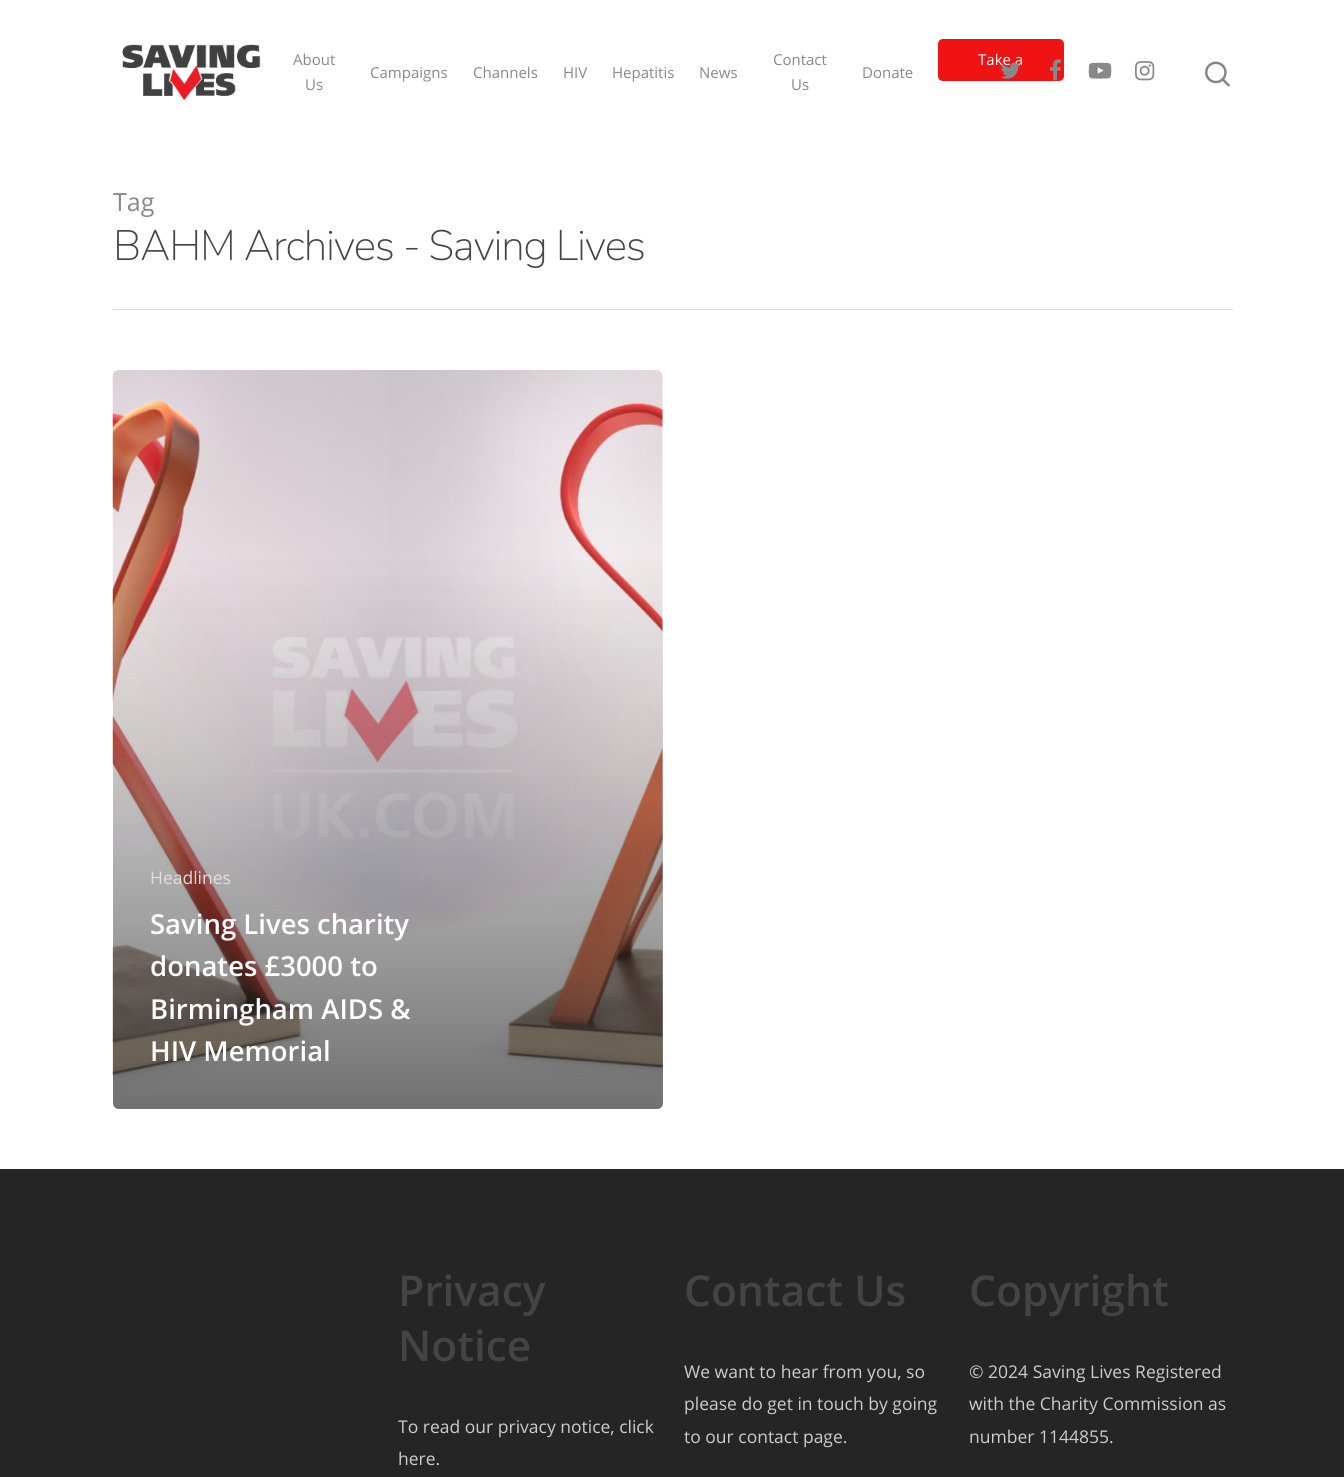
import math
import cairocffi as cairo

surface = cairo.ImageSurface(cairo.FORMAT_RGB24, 1344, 1477)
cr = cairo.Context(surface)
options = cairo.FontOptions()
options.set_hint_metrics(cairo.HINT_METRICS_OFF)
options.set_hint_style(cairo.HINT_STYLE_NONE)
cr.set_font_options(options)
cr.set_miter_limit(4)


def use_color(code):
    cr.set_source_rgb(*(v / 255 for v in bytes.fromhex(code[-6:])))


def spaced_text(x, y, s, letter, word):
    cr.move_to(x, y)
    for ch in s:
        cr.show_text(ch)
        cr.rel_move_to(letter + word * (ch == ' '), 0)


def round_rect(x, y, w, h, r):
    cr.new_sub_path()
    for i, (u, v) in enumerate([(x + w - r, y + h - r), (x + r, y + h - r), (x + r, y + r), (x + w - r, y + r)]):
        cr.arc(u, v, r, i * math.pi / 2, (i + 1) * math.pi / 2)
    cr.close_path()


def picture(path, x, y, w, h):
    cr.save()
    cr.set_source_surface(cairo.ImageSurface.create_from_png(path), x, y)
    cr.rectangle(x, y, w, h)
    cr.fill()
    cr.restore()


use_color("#ffffff")
cr.paint()
picture("img1.png", 122, 44, 139, 57)
cr.select_font_face("Open Sans")
cr.set_font_size(15)
use_color("#888888")
cr.move_to(293, 65)
cr.show_text("About")
cr.move_to(305, 90)
cr.show_text("Us")
cr.move_to(370, 78)
cr.show_text("Campaigns")
cr.move_to(473, 78)
cr.show_text("Channels")
cr.move_to(563, 78)
cr.show_text("HIV")
cr.move_to(612, 78)
cr.show_text("Hepatitis")
cr.move_to(699, 78)
cr.show_text("News")
cr.move_to(773, 65)
cr.show_text("Contact")
cr.move_to(791, 90)
cr.show_text("Us")
cr.move_to(862, 78)
cr.show_text("Donate")
use_color("#ef1313")
round_rect(938, 39, 126, 42, 5)
cr.fill()
use_color("#ffffff")
cr.move_to(978, 65)
cr.show_text("Take a")
picture("img2.png", 1001, 62, 20, 17)
picture("img3.png", 1049, 59, 12, 22)
picture("img4.png", 1088, 62, 24, 17)
picture("img5.png", 1135, 61, 20, 20)
picture("img6.png", 1205, 61, 25, 26)
use_color("#dddddd")
cr.rectangle(113, 309, 1120, 1)
cr.fill()
cr.set_font_size(25)
use_color("#888888")
cr.move_to(113, 211)
cr.show_text("Tag")
cr.select_font_face("Nunito ExtraLight")
cr.set_font_size(42.5)
use_color("#444444")
spaced_text(113, 260, "BAHM Archives - Saving Lives", -1.25, 0)
picture("img7.png", 112, 370, 551, 722)
gradient = cairo.LinearGradient(389, 556, 389, 1113)
gradient.add_color_stop_rgba(0, 0.137, 0.137, 0.137, 0)
gradient.add_color_stop_rgba(1, 0.137, 0.137, 0.137, 0.65)
cr.set_source(gradient)
cr.new_path()
cr.move_to(113, 556)
cr.line_to(663, 556)
cr.line_to(663, 1103)
cr.curve_to(663, 1106.5, 660.5, 1109, 657, 1109)
cr.line_to(119, 1109)
cr.curve_to(115.5, 1109, 113, 1106.5, 113, 1103)
cr.close_path()
cr.fill()
cr.select_font_face("Open Sans")
cr.set_font_size(17.5)
use_color("#e4dddc")
cr.move_to(150, 884)
cr.show_text("Headlines")
cr.select_font_face("Open Sans SemiBold")
cr.set_font_size(27.5)
use_color("#ffffff")
cr.move_to(150, 934)
cr.show_text("Saving Lives charity")
cr.move_to(150, 976)
cr.show_text("donates £3000 to")
cr.move_to(150, 1019)
cr.show_text("Birmingham AIDS &")
cr.move_to(150, 1061)
cr.show_text("HIV Memorial")
use_color("#252525")
cr.rectangle(0, 1169, 1344, 308)
cr.fill()
cr.set_font_size(42.5)
use_color("#444444")
cr.move_to(398, 1306)
cr.show_text("Privacy")
cr.move_to(398, 1361)
cr.show_text("Notice")
cr.select_font_face("Open Sans")
cr.set_font_size(17.5)
use_color("#cccccc")
cr.move_to(398, 1433)
cr.show_text("To read our privacy notice, click")
cr.move_to(398, 1465)
cr.show_text("here.")
cr.select_font_face("Open Sans SemiBold")
cr.set_font_size(42.5)
use_color("#444444")
cr.move_to(684, 1306)
cr.show_text("Contact Us")
cr.select_font_face("Open Sans")
cr.set_font_size(17.5)
use_color("#cccccc")
cr.move_to(684, 1378)
cr.show_text("We want to hear from you, so")
cr.move_to(684, 1410)
cr.show_text("please do get in touch by going")
cr.move_to(684, 1443)
cr.show_text("to our contact page.")
cr.select_font_face("Open Sans SemiBold")
cr.set_font_size(42.5)
use_color("#444444")
cr.move_to(969, 1306)
cr.show_text("Copyright")
cr.select_font_face("Open Sans")
cr.set_font_size(17.5)
use_color("#cccccc")
cr.move_to(969, 1378)
cr.show_text("© 2024 Saving Lives Registered")
cr.move_to(969, 1410)
cr.show_text("with the Charity Commission as")
cr.move_to(969, 1443)
cr.show_text("number 1144855.")
surface.write_to_png("result.png")
